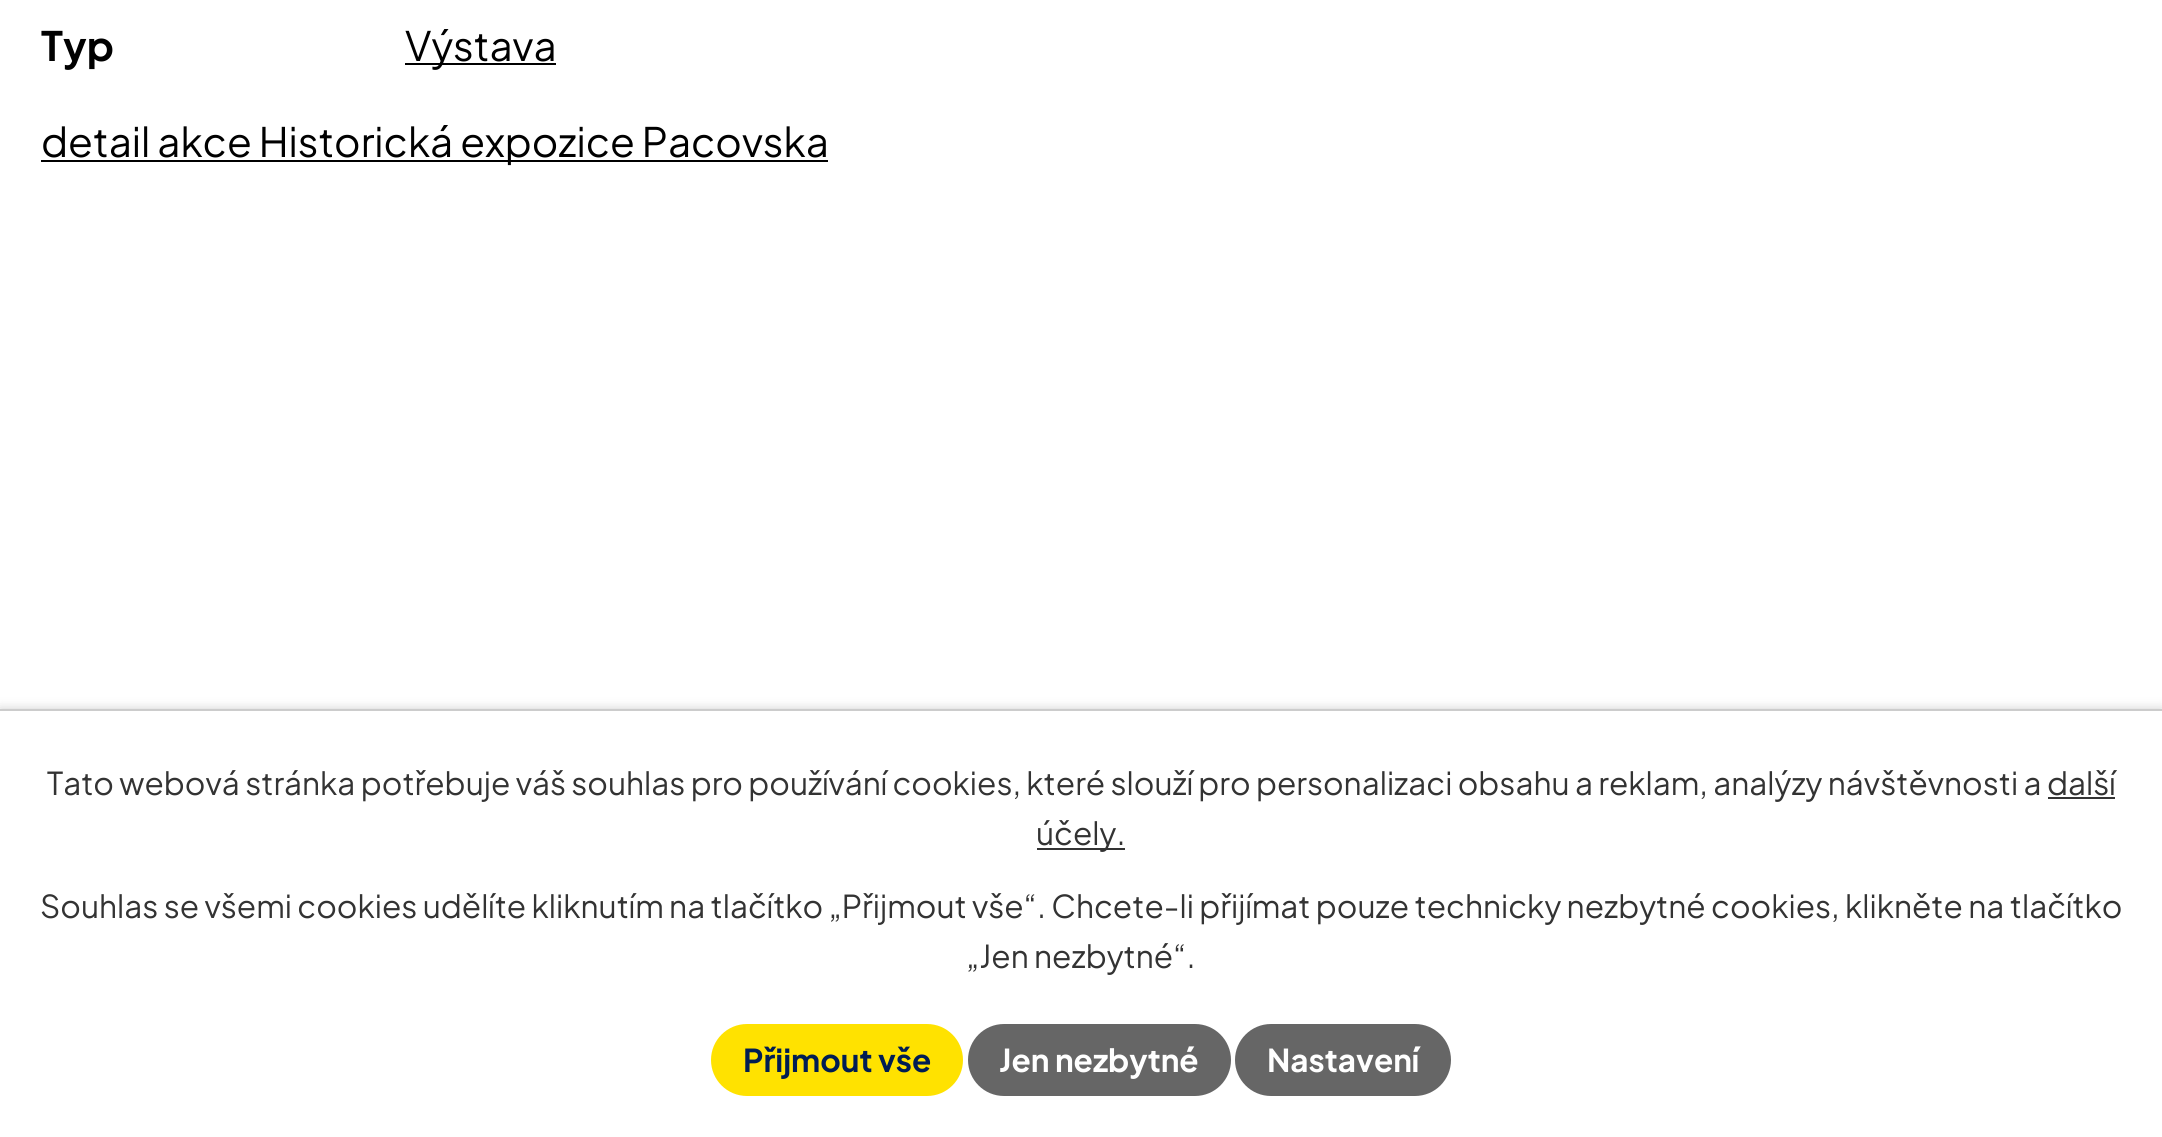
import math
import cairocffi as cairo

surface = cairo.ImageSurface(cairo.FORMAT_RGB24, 2162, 1137)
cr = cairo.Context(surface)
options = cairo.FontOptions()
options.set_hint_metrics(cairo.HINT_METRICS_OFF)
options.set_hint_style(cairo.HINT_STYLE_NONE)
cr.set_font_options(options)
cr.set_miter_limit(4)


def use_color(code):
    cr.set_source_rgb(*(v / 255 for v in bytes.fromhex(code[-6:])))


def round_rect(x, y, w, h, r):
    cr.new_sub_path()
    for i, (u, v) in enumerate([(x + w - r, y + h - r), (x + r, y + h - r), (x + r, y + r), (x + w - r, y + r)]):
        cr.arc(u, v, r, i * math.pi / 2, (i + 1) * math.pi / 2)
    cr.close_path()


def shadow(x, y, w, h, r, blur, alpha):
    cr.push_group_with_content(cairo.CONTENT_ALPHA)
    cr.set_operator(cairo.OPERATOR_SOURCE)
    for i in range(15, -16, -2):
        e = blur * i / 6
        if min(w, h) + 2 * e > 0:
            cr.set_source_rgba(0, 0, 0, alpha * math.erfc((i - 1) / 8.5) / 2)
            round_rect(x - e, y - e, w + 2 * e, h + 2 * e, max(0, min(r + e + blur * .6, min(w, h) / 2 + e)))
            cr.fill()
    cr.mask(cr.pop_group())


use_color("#ffffff")
cr.paint()
cr.select_font_face("Plus Jakarta Sans", cairo.FONT_SLANT_NORMAL, cairo.FONT_WEIGHT_BOLD)
cr.set_font_size(40.5)
use_color("#000000")
cr.move_to(41, 61)
cr.show_text("Typ")
cr.rectangle(405, 63, 151, 2)
cr.fill()
cr.select_font_face("Plus Jakarta Sans")
cr.move_to(405, 61)
cr.show_text("Výstava")
cr.rectangle(41, 160, 787, 2)
cr.fill()
cr.move_to(41, 157)
cr.show_text("detail akce Historická expozice Pacovska")
use_color("#000000")
shadow(0, 709, 2162, 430, 0, 5.5, 0.2)
use_color("#ffffff")
cr.rectangle(0, 711, 2162, 426)
cr.fill()
use_color("#cccccc")
cr.rectangle(0, 709, 2162, 2)
cr.fill()
cr.set_font_size(31.5)
use_color("#333333")
cr.move_to(47, 795)
cr.show_text("Tato webová stránka potřebuje váš souhlas pro používání cookies, které slouží pro personalizaci obsahu a reklam, analýzy návštěvnosti a další")
cr.rectangle(1037, 848, 88, 2)
cr.fill()
cr.move_to(1036, 845)
cr.show_text("účely.")
cr.rectangle(2048, 797, 67, 2)
cr.fill()
cr.move_to(40, 918)
cr.show_text("Souhlas se všemi cookies udělíte kliknutím na tlačítko „Přijmout vše“. Chcete-li přijímat pouze technicky nezbytné cookies, klikněte na tlačítko")
cr.move_to(966, 968)
cr.show_text("„Jen nezbytné“.")
use_color("#ffe200")
round_rect(711, 1024, 252, 72, 36)
cr.fill()
cr.select_font_face("Plus Jakarta Sans", cairo.FONT_SLANT_NORMAL, cairo.FONT_WEIGHT_BOLD)
use_color("#001d53")
cr.move_to(743, 1072)
cr.show_text("Přijmout vše")
use_color("#666666")
round_rect(968, 1024, 263, 72, 36)
cr.fill()
use_color("#ffffff")
cr.move_to(999, 1072)
cr.show_text("Jen nezbytné")
use_color("#666666")
round_rect(1235, 1024, 216, 72, 36)
cr.fill()
use_color("#ffffff")
cr.move_to(1267, 1072)
cr.show_text("Nastavení")
surface.write_to_png("result.png")
